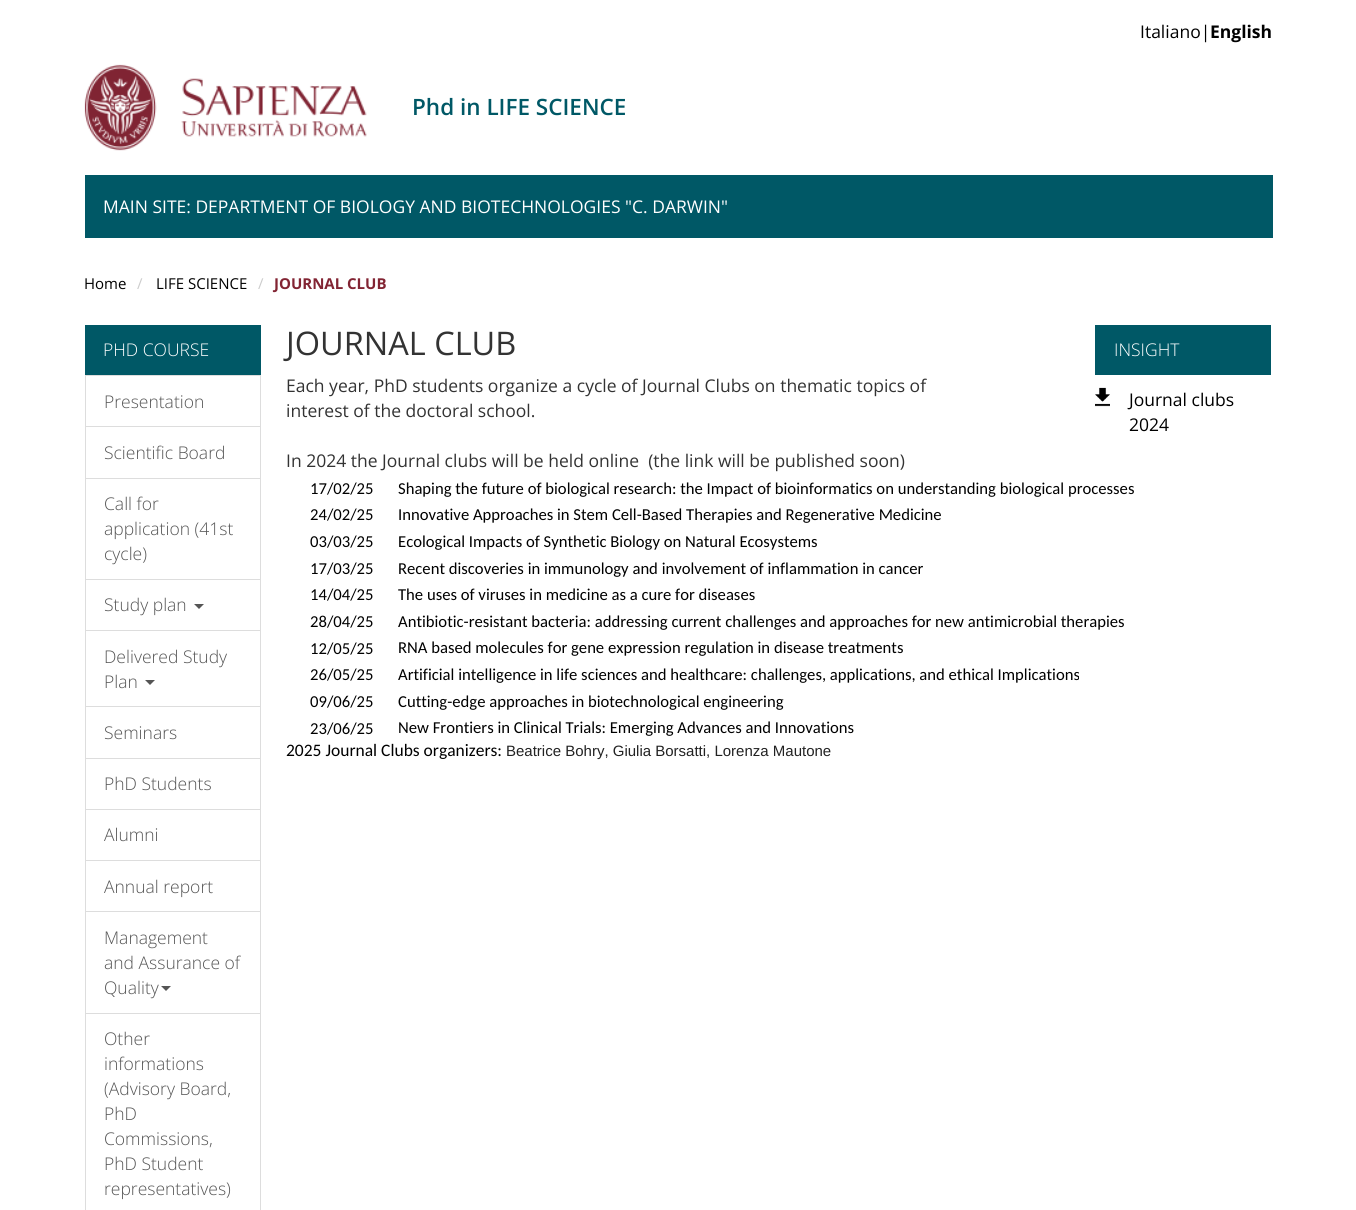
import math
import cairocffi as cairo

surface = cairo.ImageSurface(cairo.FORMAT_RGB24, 1356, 1210)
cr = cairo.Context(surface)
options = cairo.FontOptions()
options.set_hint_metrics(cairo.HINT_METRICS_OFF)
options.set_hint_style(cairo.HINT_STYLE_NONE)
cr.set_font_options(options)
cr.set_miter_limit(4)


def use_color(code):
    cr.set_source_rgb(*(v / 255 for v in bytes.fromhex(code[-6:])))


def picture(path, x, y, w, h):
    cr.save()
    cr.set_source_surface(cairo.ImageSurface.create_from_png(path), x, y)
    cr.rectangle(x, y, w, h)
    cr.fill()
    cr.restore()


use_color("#ffffff")
cr.paint()
cr.select_font_face("Open Sans")
cr.set_font_size(17.5)
use_color("#000000")
cr.move_to(1140, 38)
cr.show_text("Italiano|")
cr.select_font_face("Open Sans", cairo.FONT_SLANT_NORMAL, cairo.FONT_WEIGHT_BOLD)
cr.move_to(1210, 38)
cr.show_text("English")
picture("img1.png", 84, 64, 283, 87)
cr.select_font_face("Open Sans SemiBold")
cr.set_font_size(22.5)
use_color("#005866")
cr.move_to(412, 115)
cr.show_text("Phd in LIFE SCIENCE")
cr.rectangle(85, 175, 1188, 63)
cr.fill()
cr.select_font_face("Open Sans")
cr.set_font_size(17.5)
use_color("#ffffff")
cr.move_to(103, 213)
cr.show_text("MAIN SITE: DEPARTMENT OF BIOLOGY AND BIOTECHNOLOGIES \"C. DARWIN\"")
cr.set_font_size(15)
use_color("#000000")
cr.move_to(84, 289)
cr.show_text("Home")
use_color("#cccccc")
cr.move_to(137, 289)
cr.show_text("/")
use_color("#000000")
cr.move_to(156, 289)
cr.show_text("LIFE SCIENCE")
use_color("#cccccc")
cr.move_to(258, 289)
cr.show_text("/")
cr.select_font_face("Open Sans", cairo.FONT_SLANT_NORMAL, cairo.FONT_WEIGHT_BOLD)
use_color("#822433")
cr.move_to(274, 289)
cr.show_text("JOURNAL CLUB")
use_color("#005866")
cr.rectangle(85, 325, 176, 50)
cr.fill()
cr.select_font_face("Open Sans Light")
cr.set_font_size(17.5)
use_color("#ffffff")
cr.move_to(103, 356)
cr.show_text("PHD COURSE")
use_color("#dddddd")
cr.rectangle(85, 375, 176, 1)
cr.fill()
cr.rectangle(260, 375, 1, 51)
cr.fill()
cr.rectangle(85, 375, 1, 51)
cr.fill()
use_color("#555555")
cr.move_to(104, 408)
cr.show_text("Presentation")
use_color("#dddddd")
cr.rectangle(85, 426, 176, 1)
cr.fill()
cr.rectangle(260, 426, 1, 52)
cr.fill()
cr.rectangle(85, 426, 1, 52)
cr.fill()
use_color("#555555")
cr.move_to(104, 459)
cr.show_text("Scientific Board")
use_color("#dddddd")
cr.rectangle(85, 478, 176, 1)
cr.fill()
cr.rectangle(260, 478, 1, 101)
cr.fill()
cr.rectangle(85, 478, 1, 101)
cr.fill()
use_color("#555555")
cr.move_to(104, 510)
cr.show_text("Call for")
cr.move_to(104, 535)
cr.show_text("application (41st")
cr.move_to(104, 560)
cr.show_text("cycle)")
use_color("#dddddd")
cr.rectangle(85, 579, 176, 1)
cr.fill()
cr.rectangle(260, 579, 1, 51)
cr.fill()
cr.rectangle(85, 579, 1, 51)
cr.fill()
use_color("#555555")
cr.move_to(104, 611)
cr.show_text("Study plan")
cr.new_path()
cr.move_to(194, 604)
cr.line_to(204, 604)
cr.line_to(199, 609)
cr.close_path()
cr.fill()
use_color("#dddddd")
cr.rectangle(85, 630, 176, 1)
cr.fill()
cr.rectangle(260, 630, 1, 76)
cr.fill()
cr.rectangle(85, 630, 1, 76)
cr.fill()
use_color("#555555")
cr.move_to(104, 663)
cr.show_text("Delivered Study")
cr.move_to(104, 688)
cr.show_text("Plan")
cr.new_path()
cr.move_to(145, 680)
cr.line_to(155, 680)
cr.line_to(150, 685)
cr.close_path()
cr.fill()
use_color("#dddddd")
cr.rectangle(85, 706, 176, 1)
cr.fill()
cr.rectangle(260, 706, 1, 52)
cr.fill()
cr.rectangle(85, 706, 1, 52)
cr.fill()
use_color("#555555")
cr.move_to(104, 739)
cr.show_text("Seminars")
use_color("#dddddd")
cr.rectangle(85, 758, 176, 1)
cr.fill()
cr.rectangle(260, 758, 1, 51)
cr.fill()
cr.rectangle(85, 758, 1, 51)
cr.fill()
use_color("#555555")
cr.move_to(104, 790)
cr.show_text("PhD Students")
use_color("#dddddd")
cr.rectangle(85, 809, 176, 1)
cr.fill()
cr.rectangle(260, 809, 1, 51)
cr.fill()
cr.rectangle(85, 809, 1, 51)
cr.fill()
use_color("#555555")
cr.move_to(104, 841)
cr.show_text("Alumni")
use_color("#dddddd")
cr.rectangle(85, 860, 176, 1)
cr.fill()
cr.rectangle(260, 860, 1, 51)
cr.fill()
cr.rectangle(85, 860, 1, 51)
cr.fill()
use_color("#555555")
cr.move_to(104, 893)
cr.show_text("Annual report")
use_color("#dddddd")
cr.rectangle(85, 911, 176, 1)
cr.fill()
cr.rectangle(260, 911, 1, 102)
cr.fill()
cr.rectangle(85, 911, 1, 102)
cr.fill()
use_color("#555555")
cr.move_to(104, 944)
cr.show_text("Management")
cr.move_to(104, 969)
cr.show_text("and Assurance of")
cr.move_to(104, 994)
cr.show_text("Quality")
cr.new_path()
cr.move_to(161, 986)
cr.line_to(171, 986)
cr.line_to(166, 991)
cr.close_path()
cr.fill()
use_color("#dddddd")
cr.rectangle(85, 1013, 176, 1)
cr.fill()
cr.rectangle(260, 1013, 1, 197)
cr.fill()
cr.rectangle(85, 1013, 1, 197)
cr.fill()
use_color("#555555")
cr.move_to(104, 1045)
cr.show_text("Other")
cr.move_to(104, 1070)
cr.show_text("informations")
cr.move_to(104, 1095)
cr.show_text("(Advisory Board,")
cr.move_to(104, 1120)
cr.show_text("PhD")
cr.move_to(104, 1145)
cr.show_text("Commissions,")
cr.move_to(104, 1170)
cr.show_text("PhD Student")
cr.move_to(104, 1195)
cr.show_text("representatives)")
cr.select_font_face("Open Sans")
cr.set_font_size(32.5)
use_color("#333333")
cr.move_to(286, 355)
cr.show_text("JOURNAL CLUB")
cr.set_font_size(17.5)
cr.move_to(286, 392)
cr.show_text("Each year, PhD students organize a cycle of Journal Clubs on thematic topics of")
cr.move_to(286, 417)
cr.show_text("interest of the doctoral school.")
cr.move_to(286, 467)
cr.show_text("In 2024 the Journal clubs will be held online  (the link will be published soon)")
cr.select_font_face("Carlito")
cr.set_font_size(16.65)
use_color("#000000")
cr.move_to(310, 494)
cr.show_text("17/02/25")
cr.move_to(398, 494)
cr.show_text("Shaping the future of biological research: the Impact of bioinformatics on understanding biological processes")
cr.move_to(310, 520)
cr.show_text("24/02/25")
cr.move_to(398, 520)
cr.show_text("Innovative Approaches in Stem Cell-Based Therapies and Regenerative Medicine")
cr.move_to(310, 547)
cr.show_text("03/03/25")
cr.move_to(398, 547)
cr.show_text("Ecological Impacts of Synthetic Biology on Natural Ecosystems")
cr.move_to(310, 574)
cr.show_text("17/03/25")
cr.move_to(398, 574)
cr.show_text("Recent discoveries in immunology and involvement of inflammation in cancer")
cr.move_to(310, 600)
cr.show_text("14/04/25")
cr.move_to(398, 600)
cr.show_text("The uses of viruses in medicine as a cure for diseases")
cr.move_to(310, 627)
cr.show_text("28/04/25")
cr.move_to(398, 627)
cr.show_text("Antibiotic-resistant bacteria: addressing current challenges and approaches for new antimicrobial therapies")
cr.move_to(310, 654)
cr.show_text("12/05/25")
cr.move_to(398, 653)
cr.show_text("RNA based molecules for gene expression regulation in disease treatments")
cr.move_to(310, 680)
cr.show_text("26/05/25")
cr.move_to(398, 680)
cr.show_text("Artificial intelligence in life sciences and healthcare: challenges, applications, and ethical Implications")
cr.move_to(310, 707)
cr.show_text("09/06/25")
cr.move_to(398, 707)
cr.show_text("Cutting-edge approaches in biotechnological engineering")
cr.move_to(310, 734)
cr.show_text("23/06/25")
cr.move_to(398, 733)
cr.show_text("New Frontiers in Clinical Trials: Emerging Advances and Innovations")
cr.set_font_size(17.5)
cr.move_to(286, 756)
cr.show_text("2025 Journal Clubs organizers:")
cr.select_font_face("Liberation Sans")
cr.set_font_size(15)
use_color("#222222")
cr.move_to(506, 756)
cr.show_text("Beatrice Bohry, Giulia Borsatti, Lorenza Mautone")
use_color("#005866")
cr.rectangle(1095, 325, 176, 50)
cr.fill()
cr.select_font_face("Open Sans Light")
cr.set_font_size(17.5)
use_color("#ffffff")
cr.move_to(1114, 356)
cr.show_text("INSIGHT")
picture("img2.png", 1095, 387, 15, 20)
cr.select_font_face("Open Sans")
use_color("#000000")
cr.move_to(1129, 406)
cr.show_text("Journal clubs")
cr.move_to(1129, 431)
cr.show_text("2024")
surface.write_to_png("result.png")
